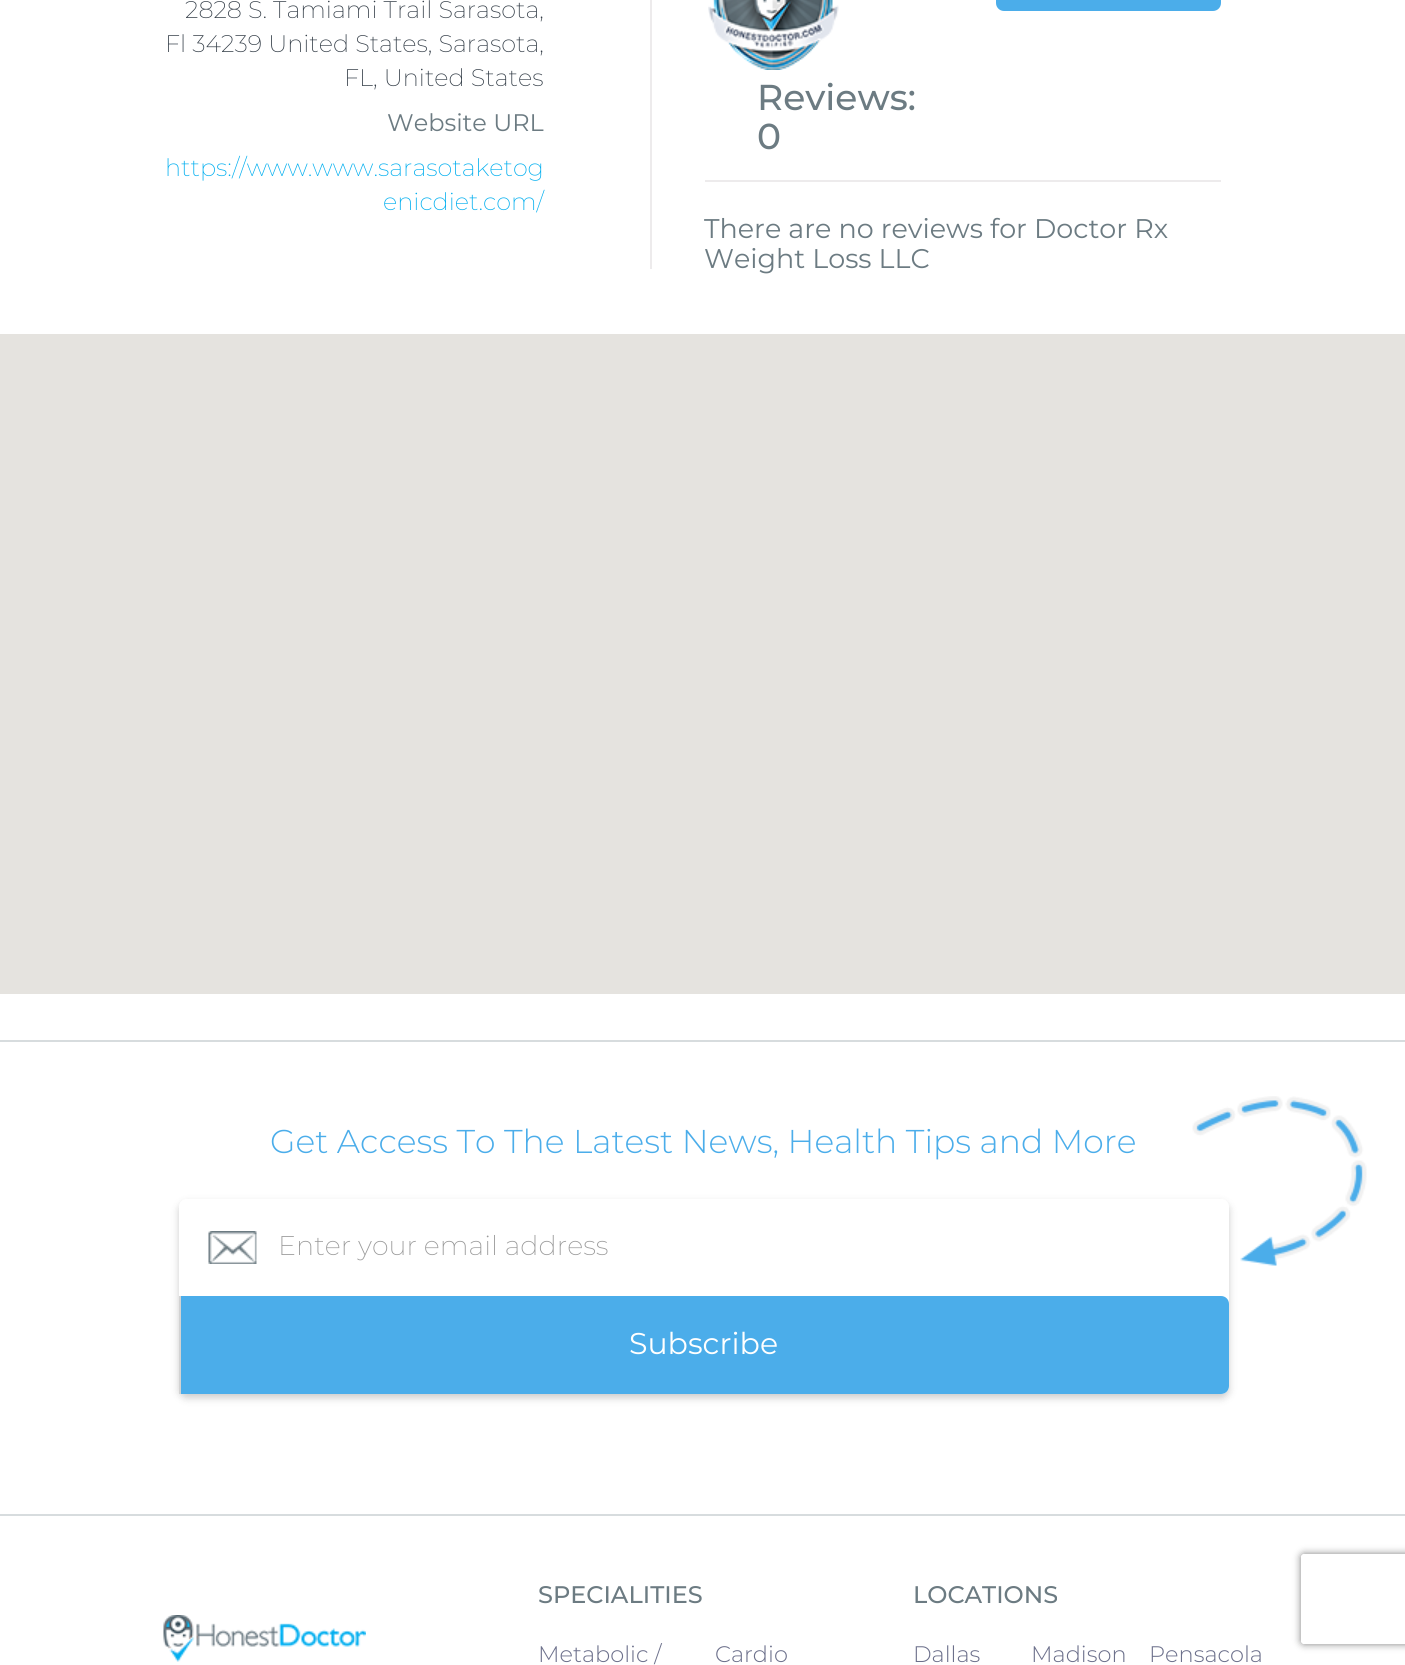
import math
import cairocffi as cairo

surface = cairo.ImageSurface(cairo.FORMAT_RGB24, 1405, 1665)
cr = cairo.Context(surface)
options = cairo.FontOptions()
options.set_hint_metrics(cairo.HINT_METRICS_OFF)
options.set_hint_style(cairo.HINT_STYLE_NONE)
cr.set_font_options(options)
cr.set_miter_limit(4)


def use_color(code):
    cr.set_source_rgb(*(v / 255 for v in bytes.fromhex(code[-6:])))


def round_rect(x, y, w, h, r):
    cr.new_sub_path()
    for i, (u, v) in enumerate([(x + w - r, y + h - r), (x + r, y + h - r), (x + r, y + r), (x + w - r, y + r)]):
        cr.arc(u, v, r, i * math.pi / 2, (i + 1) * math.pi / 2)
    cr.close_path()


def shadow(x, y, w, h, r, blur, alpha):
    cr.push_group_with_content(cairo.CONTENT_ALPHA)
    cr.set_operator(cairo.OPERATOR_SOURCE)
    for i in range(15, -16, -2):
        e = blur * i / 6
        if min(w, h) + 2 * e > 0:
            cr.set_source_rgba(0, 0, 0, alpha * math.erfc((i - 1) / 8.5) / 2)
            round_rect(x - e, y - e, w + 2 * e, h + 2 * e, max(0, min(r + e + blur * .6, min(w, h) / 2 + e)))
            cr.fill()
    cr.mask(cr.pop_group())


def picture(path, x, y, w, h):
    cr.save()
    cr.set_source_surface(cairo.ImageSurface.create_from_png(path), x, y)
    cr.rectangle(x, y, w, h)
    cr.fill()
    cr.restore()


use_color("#ffffff")
cr.paint()
use_color("#edebec")
cr.rectangle(650, 0, 2, 269)
cr.fill()
cr.select_font_face("Montserrat ExtraLight")
cr.set_font_size(24)
use_color("#333d47")
cr.move_to(185, 18)
cr.show_text("2828 S. Tamiami Trail Sarasota,")
cr.move_to(165, 52)
cr.show_text("Fl 34239 United States, Sarasota,")
cr.move_to(344, 86)
cr.show_text("FL, United States")
cr.select_font_face("Montserrat")
use_color("#6c7b82")
cr.move_to(387, 131)
cr.show_text("Website URL")
cr.select_font_face("Montserrat ExtraLight")
use_color("#00aeef")
cr.move_to(165, 176)
cr.show_text("https://www.www.sarasotaketog")
cr.move_to(383, 210)
cr.show_text("enicdiet.com/")
use_color("#edebec")
cr.rectangle(705, 180, 516, 2)
cr.fill()
use_color("#4badea")
round_rect(996, -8, 225, 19, 8)
cr.fill()
picture("img1.png", 708, 0, 131, 70)
cr.select_font_face("Montserrat Medium")
cr.set_font_size(36)
use_color("#6c7b82")
cr.move_to(757, 110)
cr.show_text("Reviews:")
cr.move_to(757, 149)
cr.show_text("0")
cr.select_font_face("Montserrat")
cr.set_font_size(27)
cr.move_to(704, 238)
cr.show_text("There are no reviews for Doctor Rx")
cr.move_to(704, 268)
cr.show_text("Weight Loss LLC")
use_color("#e5e3df")
cr.rectangle(0, 334, 1405, 660)
cr.fill()
use_color("#d7dcde")
cr.rectangle(0, 1040, 1405, 2)
cr.fill()
cr.rectangle(0, 1514, 1405, 2)
cr.fill()
cr.select_font_face("Montserrat Light")
cr.set_font_size(33)
use_color("#4badea")
cr.move_to(270, 1153)
cr.show_text("Get Access To The Latest News, Health Tips and More")
cr.save()
cr.set_fill_rule(cairo.FILL_RULE_EVEN_ODD)
cr.new_path()
cr.move_to(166, 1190)
cr.line_to(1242, 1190)
cr.line_to(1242, 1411)
cr.line_to(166, 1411)
cr.close_path()
cr.move_to(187, 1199)
cr.line_to(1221, 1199)
cr.curve_to(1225.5, 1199, 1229, 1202.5, 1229, 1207)
cr.line_to(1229, 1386)
cr.curve_to(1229, 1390.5, 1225.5, 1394, 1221, 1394)
cr.line_to(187, 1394)
cr.curve_to(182.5, 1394, 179, 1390.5, 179, 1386)
cr.line_to(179, 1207)
cr.curve_to(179, 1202.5, 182.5, 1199, 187, 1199)
cr.close_path()
cr.clip()
use_color("#000000")
shadow(179, 1203, 1050, 195, 8, 4, 0.2)
cr.restore()
picture("img2.png", 1192, 1096, 175, 170)
picture("img3.png", 208, 1231, 49, 33)
cr.select_font_face("Montserrat ExtraLight")
cr.set_font_size(27)
use_color("#999999")
cr.move_to(278, 1255)
cr.show_text("Enter your email address")
use_color("#4badea")
cr.new_path()
cr.move_to(179, 1296)
cr.line_to(1221, 1296)
cr.curve_to(1225.5, 1296, 1229, 1299.5, 1229, 1304)
cr.line_to(1229, 1386)
cr.curve_to(1229, 1390.5, 1225.5, 1394, 1221, 1394)
cr.line_to(179, 1394)
cr.close_path()
cr.fill()
use_color("#d3d3d3")
cr.rectangle(179, 1296, 2, 98)
cr.fill()
cr.select_font_face("Montserrat")
cr.set_font_size(30)
use_color("#ffffff")
cr.move_to(629, 1354)
cr.show_text("Subscribe")
picture("img4.png", 163, 1615, 203, 47)
cr.select_font_face("Montserrat Medium")
cr.set_font_size(24)
use_color("#6c7b82")
cr.move_to(538, 1603)
cr.show_text("SPECIALITIES")
cr.select_font_face("Montserrat Light")
cr.set_font_size(22.5)
use_color("#6c708b")
cr.move_to(538, 1662)
cr.show_text("Metabolic /")
cr.move_to(715, 1662)
cr.show_text("Cardio")
cr.select_font_face("Montserrat Medium")
cr.set_font_size(24)
use_color("#6c7b82")
cr.move_to(913, 1603)
cr.show_text("LOCATIONS")
cr.select_font_face("Montserrat Light")
cr.set_font_size(22.5)
use_color("#6c708b")
cr.move_to(913, 1662)
cr.show_text("Dallas")
cr.move_to(1031, 1662)
cr.show_text("Madison")
cr.move_to(1149, 1662)
cr.show_text("Pensacola")
cr.save()
cr.set_fill_rule(cairo.FILL_RULE_EVEN_ODD)
cr.new_path()
cr.move_to(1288, 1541)
cr.line_to(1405, 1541)
cr.line_to(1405, 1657)
cr.line_to(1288, 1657)
cr.close_path()
cr.move_to(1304, 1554)
cr.line_to(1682, 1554)
cr.curve_to(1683.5, 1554, 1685, 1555.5, 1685, 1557)
cr.line_to(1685, 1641)
cr.curve_to(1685, 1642.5, 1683.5, 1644, 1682, 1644)
cr.line_to(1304, 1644)
cr.curve_to(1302.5, 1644, 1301, 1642.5, 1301, 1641)
cr.line_to(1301, 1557)
cr.curve_to(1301, 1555.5, 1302.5, 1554, 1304, 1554)
cr.close_path()
cr.clip()
use_color("#808080")
shadow(1301, 1554, 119, 90, 3, 4, 1)
cr.restore()
surface.write_to_png("result.png")
